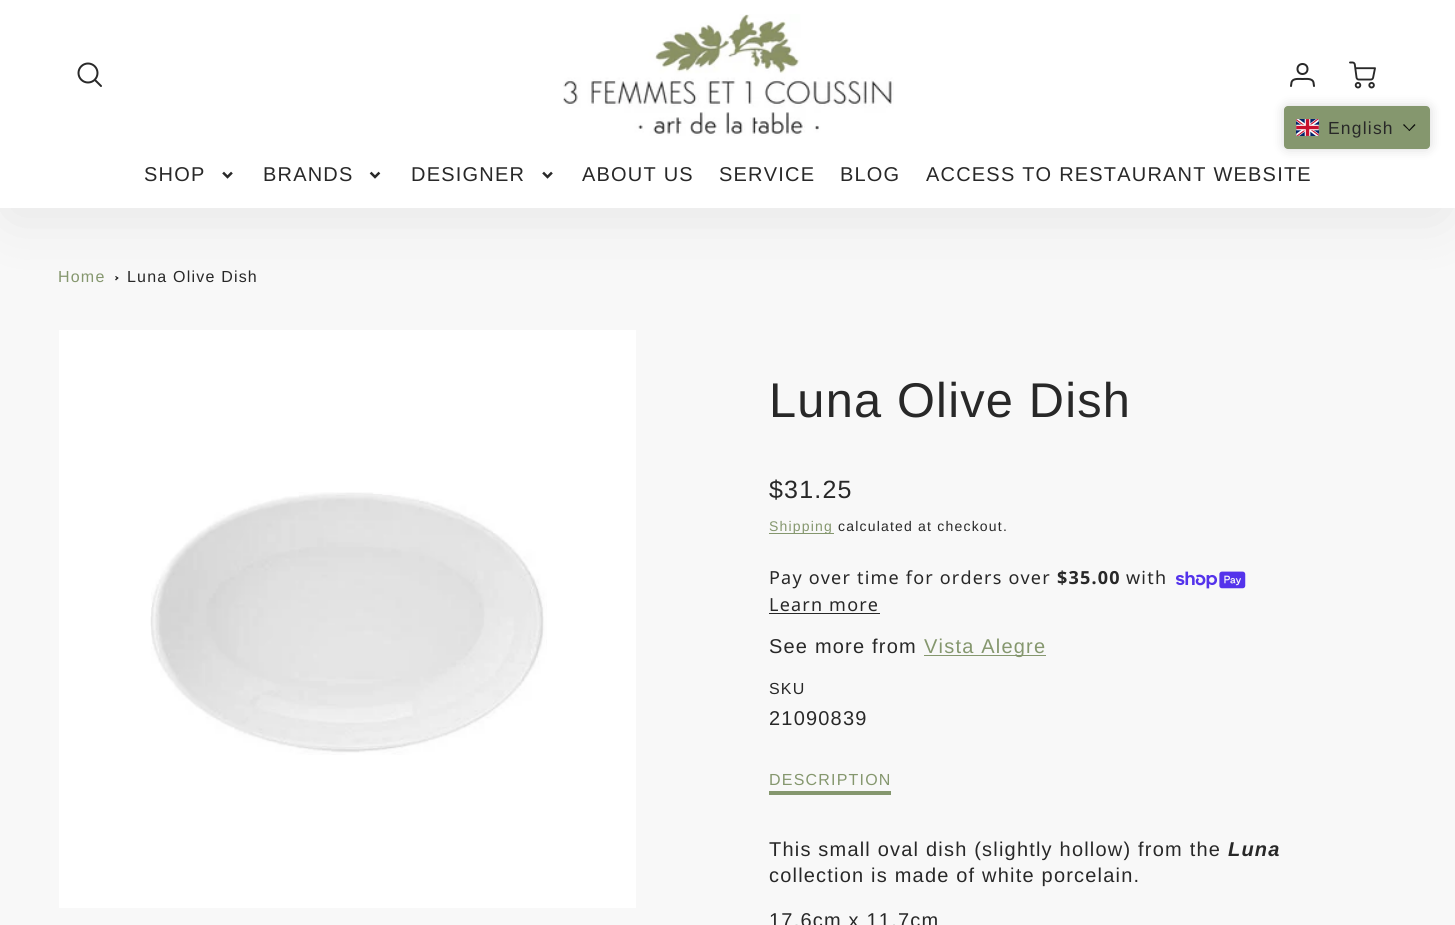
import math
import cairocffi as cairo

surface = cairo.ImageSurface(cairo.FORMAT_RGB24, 1455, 925)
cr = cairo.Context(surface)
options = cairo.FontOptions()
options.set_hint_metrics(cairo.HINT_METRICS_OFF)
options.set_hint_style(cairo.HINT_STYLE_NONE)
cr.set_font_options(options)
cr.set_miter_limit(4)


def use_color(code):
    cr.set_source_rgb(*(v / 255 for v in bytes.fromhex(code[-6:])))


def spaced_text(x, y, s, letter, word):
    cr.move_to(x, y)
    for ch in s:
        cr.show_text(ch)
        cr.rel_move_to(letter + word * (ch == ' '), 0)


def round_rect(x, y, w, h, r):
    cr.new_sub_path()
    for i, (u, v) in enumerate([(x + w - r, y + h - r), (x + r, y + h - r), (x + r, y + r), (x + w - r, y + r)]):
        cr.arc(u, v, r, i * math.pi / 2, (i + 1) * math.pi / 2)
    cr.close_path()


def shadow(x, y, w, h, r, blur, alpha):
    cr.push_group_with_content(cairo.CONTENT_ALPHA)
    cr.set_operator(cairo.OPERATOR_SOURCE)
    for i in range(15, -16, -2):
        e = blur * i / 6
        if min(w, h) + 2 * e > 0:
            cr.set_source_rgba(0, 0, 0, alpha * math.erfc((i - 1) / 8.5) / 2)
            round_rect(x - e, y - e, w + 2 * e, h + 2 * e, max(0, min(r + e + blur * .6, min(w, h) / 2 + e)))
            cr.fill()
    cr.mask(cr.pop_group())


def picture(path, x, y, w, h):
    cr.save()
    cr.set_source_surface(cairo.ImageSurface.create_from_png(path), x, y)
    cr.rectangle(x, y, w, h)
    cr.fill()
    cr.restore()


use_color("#f8f8f8")
cr.paint()
use_color("#282828")
cr.new_path()
cr.move_to(116, 276)
cr.line_to(118.5, 278)
cr.line_to(117.5, 279)
cr.line_to(115, 276.5)
cr.close_path()
cr.fill()
cr.new_path()
cr.move_to(117.5, 277)
cr.line_to(118.5, 278)
cr.line_to(116, 280.5)
cr.line_to(115, 279.5)
cr.close_path()
cr.fill()
use_color("#292929")
shadow(11, 30, 1430, 183, 0, 31, 0.1)
use_color("#ffffff")
cr.rectangle(0, 0, 1455, 208)
cr.fill()
picture("img3.png", 1349, 61, 27, 28)
use_color("#000000")
shadow(1284, 106, 146, 43, 4, 6, 0.15)
use_color("#85976e")
round_rect(1284, 106, 146, 43, 4)
cr.fill()
picture("img1.png", 1296, 119, 23, 17)
cr.select_font_face("Liberation Sans")
cr.set_font_size(17.5)
use_color("#282828")
spaced_text(1328, 134, "English", 1.2, 0)
use_color("#0d0f0b")
cr.new_path()
cr.move_to(1414.5, 124)
cr.line_to(1415.5, 125)
cr.line_to(1409.5, 131)
cr.line_to(1408.5, 130.5)
cr.close_path()
cr.fill()
cr.new_path()
cr.move_to(1404, 124)
cr.line_to(1410, 130.5)
cr.line_to(1409.5, 131)
cr.line_to(1403, 125)
cr.close_path()
cr.fill()
cr.arc(88, 73, 9.5, 0, 2 * math.pi)
use_color("#292929")
cr.stroke()
cr.new_path()
cr.move_to(101, 86)
cr.line_to(95, 80)
cr.set_line_cap(cairo.LINE_CAP_ROUND)
cr.set_line_join(cairo.LINE_JOIN_ROUND)
cr.stroke()
picture("img2.png", 563, 14, 331, 122)
cr.arc(1302.5, 69, 5, 0, 2 * math.pi)
cr.set_line_cap(cairo.LINE_CAP_BUTT)
cr.set_line_join(cairo.LINE_JOIN_MITER)
cr.stroke()
cr.new_path()
cr.move_to(1314, 86)
cr.line_to(1313.5, 82.5)
cr.curve_to(1312.5, 78, 1306, 79, 1302.5, 79)
cr.curve_to(1299, 79, 1292.5, 78, 1291.5, 82.5)
cr.line_to(1291, 86)
cr.set_line_cap(cairo.LINE_CAP_ROUND)
cr.set_line_join(cairo.LINE_JOIN_ROUND)
cr.stroke()
cr.set_font_size(20)
use_color("#282828")
spaced_text(144, 181, "SHOP", 1.2, 0)
picture("img4.png", 222, 171, 11, 8)
spaced_text(263, 181, "BRANDS", 1.2, 0)
picture("img5.png", 369, 171, 12, 8)
spaced_text(411, 181, "DESIGNER", 1.2, 0)
picture("img4.png", 542, 171, 11, 8)
spaced_text(582, 181, "ABOUT US", 1.2, 0)
spaced_text(719, 181, "SERVICE", 1.2, 0)
spaced_text(840, 181, "BLOG", 1.2, 0)
spaced_text(926, 181, "ACCESS TO RESTAURANT WEBSITE", 1.2, 0)
cr.set_font_size(16)
use_color("#85976e")
spaced_text(58, 282, "Home", 1.2, 0)
use_color("#282828")
spaced_text(127, 282, "Luna Olive Dish", 1.2, 0)
use_color("#ffffff")
cr.rectangle(59, 330, 577, 578)
cr.fill()
picture("img6.png", 150, 492, 397, 263)
cr.set_font_size(48.75)
use_color("#282828")
spaced_text(769, 417, "Luna Olive Dish", 1.2, 0)
cr.set_font_size(25)
spaced_text(769, 498, "$31.25", 1.2, 0)
use_color("#85976e")
cr.rectangle(769, 533, 65, 1)
cr.fill()
cr.set_font_size(14)
spaced_text(769, 531, "Shipping", 1.2, 0)
use_color("#282828")
spaced_text(838, 531, "calculated at checkout.", 1.2, 0)
cr.select_font_face("Noto Sans")
cr.set_font_size(18)
spaced_text(769, 584, "Pay over time for orders over", 1.2, 0)
cr.select_font_face("Noto Sans", cairo.FONT_SLANT_NORMAL, cairo.FONT_WEIGHT_BOLD)
spaced_text(1057, 584, "$35.00", 1.2, 0)
cr.select_font_face("Noto Sans")
spaced_text(1126, 584, "with", 1.2, 0)
picture("img7.png", 1176, 571, 70, 18)
spaced_text(769, 611, "Learn more", 1.2, 0)
cr.rectangle(769, 613, 111, 1)
cr.fill()
cr.select_font_face("Liberation Sans")
cr.set_font_size(20)
spaced_text(769, 653, "See more from", 1.2, 0)
use_color("#85976e")
cr.rectangle(924, 655, 122, 1)
cr.fill()
spaced_text(924, 653, "Vista Alegre", 1.2, 0)
cr.set_font_size(16)
use_color("#282828")
spaced_text(769, 694, "SKU", 1.2, 0)
cr.set_font_size(20)
spaced_text(769, 725, "21090839", 1.2, 0)
use_color("#85976e")
cr.rectangle(769, 791, 122, 4)
cr.fill()
cr.set_font_size(16)
spaced_text(769, 785, "DESCRIPTION", 1.2, 0)
cr.set_font_size(20)
use_color("#282828")
spaced_text(769, 856, "This small oval dish (slightly hollow) from the", 1.2, 0)
cr.select_font_face("Liberation Sans", cairo.FONT_SLANT_ITALIC, cairo.FONT_WEIGHT_BOLD)
spaced_text(1228, 856, "Luna", 1.2, 0)
cr.select_font_face("Liberation Sans")
spaced_text(769, 882, "collection is made of white porcelain.", 1.2, 0)
spaced_text(769, 927, "17.6cm x 11.7cm", 1.2, 0)
surface.write_to_png("result.png")
